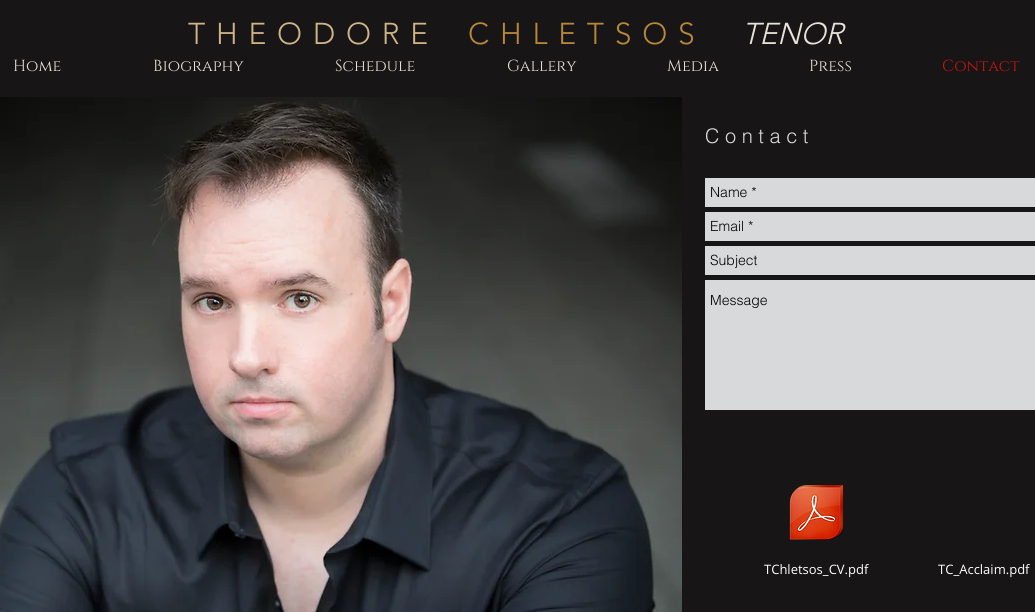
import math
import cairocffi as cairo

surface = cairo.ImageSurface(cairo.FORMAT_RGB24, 1035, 612)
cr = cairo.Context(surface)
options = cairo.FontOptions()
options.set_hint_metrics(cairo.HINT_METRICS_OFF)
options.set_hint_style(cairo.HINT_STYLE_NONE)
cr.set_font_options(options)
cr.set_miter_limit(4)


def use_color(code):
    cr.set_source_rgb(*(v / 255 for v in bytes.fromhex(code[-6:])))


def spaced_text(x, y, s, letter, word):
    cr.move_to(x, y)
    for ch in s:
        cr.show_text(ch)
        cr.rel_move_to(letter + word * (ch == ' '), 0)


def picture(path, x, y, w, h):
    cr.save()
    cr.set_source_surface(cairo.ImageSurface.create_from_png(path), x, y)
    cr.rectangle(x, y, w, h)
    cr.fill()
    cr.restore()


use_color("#171515")
cr.paint()
cr.select_font_face("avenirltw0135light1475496 Light")
cr.set_font_size(30)
use_color("#cfb486")
spaced_text(188, 44, "T H E O D O R E", 1.5, 0)
use_color("#b78837")
spaced_text(468, 44, "C H L E T S O S", 1.5, 0)
cr.select_font_face("avenirltw0135light1475496 Light", cairo.FONT_SLANT_ITALIC)
use_color("#e8e3da")
cr.move_to(742, 44)
cr.show_text("TENOR")
cr.select_font_face("Cinzel")
cr.set_font_size(16)
cr.move_to(13, 71)
cr.show_text("Home")
cr.move_to(153, 71)
cr.show_text("Biography")
cr.move_to(335, 71)
cr.show_text("Schedule")
cr.move_to(507, 71)
cr.show_text("Gallery")
cr.move_to(667, 71)
cr.show_text("Media")
cr.move_to(809, 71)
cr.show_text("Press")
use_color("#c91414")
cr.move_to(942, 71)
cr.show_text("Contact")
picture("img1.png", 0, 97, 682, 515)
cr.select_font_face("helvetica Light")
cr.set_font_size(20)
use_color("#d7d9db")
cr.move_to(705, 143)
cr.show_text("C o n t a c t")
cr.rectangle(705, 178, 330, 29)
cr.fill()
cr.set_font_size(14)
use_color("#000000")
cr.move_to(710, 197)
cr.show_text("Name *")
use_color("#d7d9db")
cr.rectangle(705, 212, 330, 29)
cr.fill()
use_color("#000000")
cr.move_to(710, 231)
cr.show_text("Email *")
use_color("#d7d9db")
cr.rectangle(705, 246, 330, 29)
cr.fill()
use_color("#000000")
cr.move_to(710, 265)
cr.show_text("Subject")
use_color("#d7d9db")
cr.rectangle(705, 280, 330, 130)
cr.fill()
use_color("#000000")
cr.move_to(710, 305)
cr.show_text("Message")
picture("img2.png", 789, 485, 55, 55)
cr.select_font_face("Open Sans")
cr.set_font_size(13)
use_color("#ffffff")
cr.move_to(764, 574)
cr.show_text("TChletsos_CV.pdf")
cr.move_to(938, 574)
cr.show_text("TC_Acclaim.pdf")
surface.write_to_png("result.png")
